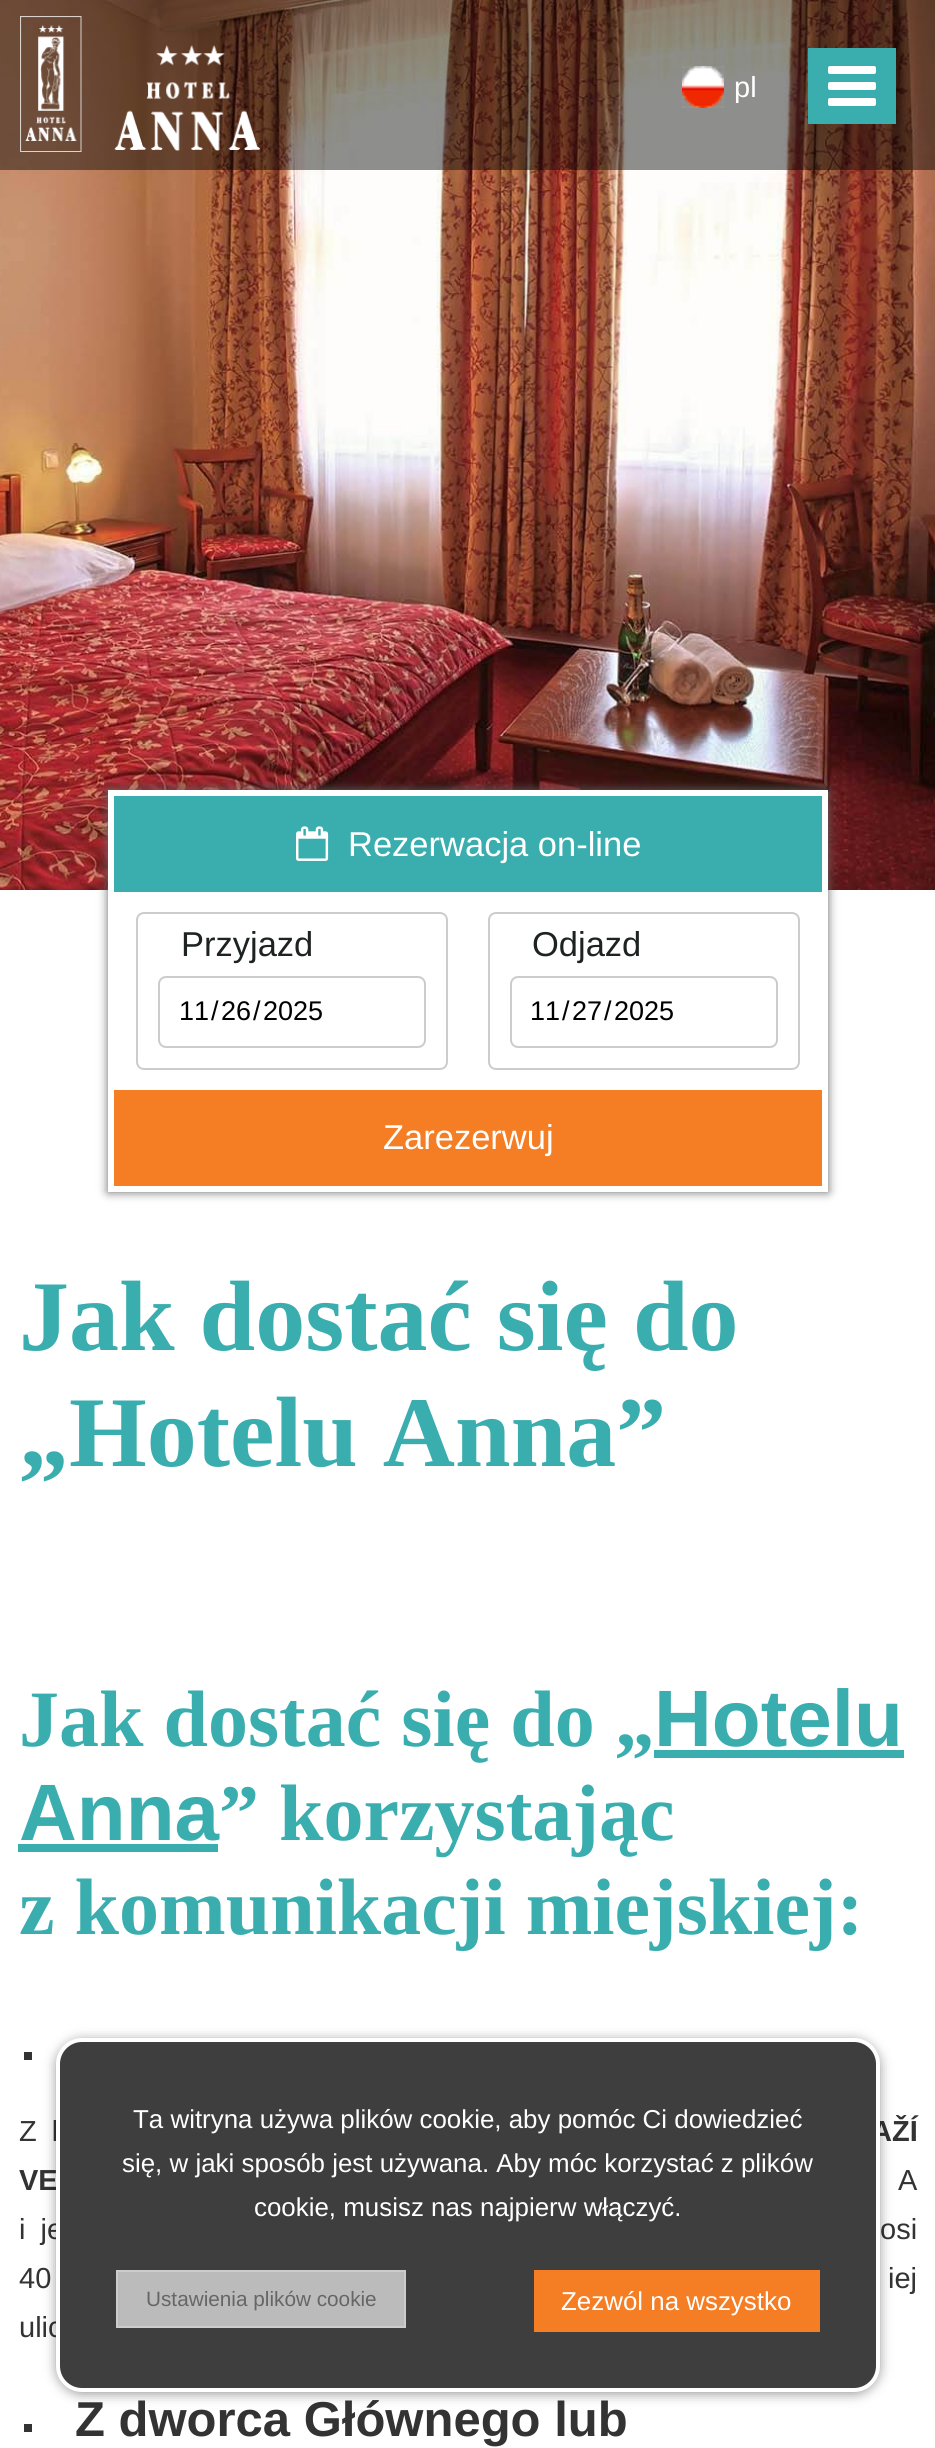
import math
import cairocffi as cairo

surface = cairo.ImageSurface(cairo.FORMAT_RGB24, 935, 2448)
cr = cairo.Context(surface)
options = cairo.FontOptions()
options.set_hint_metrics(cairo.HINT_METRICS_OFF)
options.set_hint_style(cairo.HINT_STYLE_NONE)
cr.set_font_options(options)
cr.set_miter_limit(4)


def use_color(code):
    cr.set_source_rgb(*(v / 255 for v in bytes.fromhex(code[-6:])))


def spaced_text(x, y, s, letter, word):
    cr.move_to(x, y)
    for ch in s:
        cr.show_text(ch)
        cr.rel_move_to(letter + word * (ch == ' '), 0)


def round_rect(x, y, w, h, r):
    cr.new_sub_path()
    for i, (u, v) in enumerate([(x + w - r, y + h - r), (x + r, y + h - r), (x + r, y + r), (x + w - r, y + r)]):
        cr.arc(u, v, r, i * math.pi / 2, (i + 1) * math.pi / 2)
    cr.close_path()


def shadow(x, y, w, h, r, blur, alpha):
    cr.push_group_with_content(cairo.CONTENT_ALPHA)
    cr.set_operator(cairo.OPERATOR_SOURCE)
    for i in range(15, -16, -2):
        e = blur * i / 6
        if min(w, h) + 2 * e > 0:
            cr.set_source_rgba(0, 0, 0, alpha * math.erfc((i - 1) / 8.5) / 2)
            round_rect(x - e, y - e, w + 2 * e, h + 2 * e, max(0, min(r + e + blur * .6, min(w, h) / 2 + e)))
            cr.fill()
    cr.mask(cr.pop_group())


def picture(path, x, y, w, h):
    cr.save()
    cr.set_source_surface(cairo.ImageSurface.create_from_png(path), x, y)
    cr.rectangle(x, y, w, h)
    cr.fill()
    cr.restore()


use_color("#ffffff")
cr.paint()
picture("img4.png", 0, 0, 935, 890)
cr.set_source_rgba(0, 0, 0, 0.44)
cr.rectangle(0, 0, 935, 170)
cr.fill()
picture("img1.png", 20, 16, 240, 136)
picture("img2.png", 682, 66, 42, 42)
cr.select_font_face("Liberation Sans")
cr.set_font_size(29)
use_color("#ffffff")
cr.move_to(734, 97)
cr.show_text("pl")
use_color("#3aadae")
cr.rectangle(808, 48, 88, 76)
cr.fill()
picture("img3.png", 828, 66, 48, 40)
use_color("#666666")
shadow(108, 790, 720, 402, 0, 5, 1)
use_color("#ffffff")
cr.rectangle(108, 790, 720, 402)
cr.fill()
use_color("#3aadae")
cr.rectangle(114, 796, 708, 96)
cr.fill()
picture("img5.png", 296, 826, 33, 35)
cr.set_font_size(34.5)
use_color("#ffffff")
cr.move_to(348, 856)
cr.show_text("Rezerwacja on-line")
round_rect(137, 913, 310, 156, 7)
use_color("#cccccc")
cr.stroke()
use_color("#1d2321")
cr.move_to(181, 956)
cr.show_text("Przyjazd")
round_rect(159, 977, 266, 70, 7)
use_color("#cccccc")
cr.stroke()
cr.set_font_size(27)
use_color("#000000")
cr.move_to(179, 1020)
cr.show_text("11")
cr.move_to(211, 1020)
cr.show_text("/")
cr.move_to(221, 1020)
cr.show_text("26")
cr.move_to(253, 1020)
cr.show_text("/")
cr.move_to(263, 1020)
cr.show_text("2025")
round_rect(489, 913, 310, 156, 7)
use_color("#cccccc")
cr.stroke()
cr.set_font_size(34.5)
use_color("#1d2321")
cr.move_to(532, 956)
cr.show_text("Odjazd")
round_rect(511, 977, 266, 70, 7)
use_color("#cccccc")
cr.stroke()
cr.set_font_size(27)
use_color("#000000")
cr.move_to(530, 1020)
cr.show_text("11")
cr.move_to(562, 1020)
cr.show_text("/")
cr.move_to(572, 1020)
cr.show_text("27")
cr.move_to(604, 1020)
cr.show_text("/")
cr.move_to(614, 1020)
cr.show_text("2025")
use_color("#f57d23")
cr.rectangle(114, 1090, 708, 96)
cr.fill()
cr.set_font_size(34.5)
use_color("#ffffff")
cr.move_to(383, 1149)
cr.show_text("Zarezerwuj")
cr.select_font_face("Liberation Serif", cairo.FONT_SLANT_NORMAL, cairo.FONT_WEIGHT_BOLD)
cr.set_font_size(100)
use_color("#3aadae")
cr.move_to(19, 1350)
cr.show_text("Jak dostać się do")
cr.move_to(19, 1466)
cr.show_text("„Hotelu Anna”")
cr.set_font_size(80)
cr.move_to(19, 1746)
cr.show_text("Jak dostać się do „")
cr.select_font_face("Liberation Sans", cairo.FONT_SLANT_NORMAL, cairo.FONT_WEIGHT_BOLD)
cr.move_to(654, 1746)
cr.show_text("Hotelu")
cr.rectangle(654, 1750, 250, 8)
cr.fill()
cr.move_to(19, 1840)
cr.show_text("Anna")
cr.rectangle(18, 1844, 200, 8)
cr.fill()
cr.select_font_face("Liberation Serif", cairo.FONT_SLANT_NORMAL, cairo.FONT_WEIGHT_BOLD)
cr.move_to(219, 1840)
cr.show_text("” korzystając")
cr.move_to(19, 1934)
cr.show_text("z komunikacji miejskiej:")
use_color("#333333")
cr.rectangle(24, 2052, 8, 8)
cr.fill()
cr.select_font_face("Liberation Sans")
cr.set_font_size(29)
spaced_text(19, 2141, "Z l", 0, 7)
cr.select_font_face("Liberation Sans", cairo.FONT_SLANT_NORMAL, cairo.FONT_WEIGHT_BOLD)
cr.move_to(871, 2141)
cr.show_text("AŽÍ")
cr.move_to(19, 2190)
cr.show_text("VE")
cr.select_font_face("Liberation Sans")
spaced_text(898, 2190, "A", 0, 10)
spaced_text(19, 2239, "i je", 0, 7)
spaced_text(880, 2239, "osi", 0, 7)
spaced_text(19, 2288, "40", 0, 2)
spaced_text(888, 2288, "iej", 0, 2)
cr.move_to(19, 2337)
cr.show_text("ulic")
cr.rectangle(24, 2424, 8, 8)
cr.fill()
cr.select_font_face("Liberation Sans", cairo.FONT_SLANT_NORMAL, cairo.FONT_WEIGHT_BOLD)
cr.set_font_size(49)
cr.move_to(75, 2436)
cr.show_text("Z dworca Głównego lub")
use_color("#000000")
shadow(56, 2040, 824, 354, 26, 6, 0.4)
use_color("#3e3e3e")
round_rect(58, 2040, 820, 350, 24)
cr.fill_preserve()
use_color("#ffffff")
cr.set_line_width(4)
cr.stroke()
cr.select_font_face("Liberation Sans")
cr.set_font_size(25.9)
cr.move_to(133, 2128)
cr.show_text("Ta witryna używa plików cookie, aby pomóc Ci dowiedzieć")
cr.move_to(122, 2172)
cr.show_text("się, w jaki sposób jest używana. Aby móc korzystać z plików")
cr.move_to(254, 2216)
cr.show_text("cookie, musisz nas najpierw włączyć.")
use_color("#bbbbbb")
cr.rectangle(117, 2271, 288, 56)
cr.fill_preserve()
use_color("#cccccc")
cr.set_line_width(2)
cr.stroke()
cr.set_font_size(20.75)
use_color("#666666")
cr.move_to(146, 2306)
cr.show_text("Ustawienia plików cookie")
use_color("#f57d23")
cr.rectangle(534, 2270, 286, 62)
cr.fill()
cr.set_font_size(25.9)
use_color("#ffffff")
cr.move_to(561, 2310)
cr.show_text("Zezwól na wszystko")
surface.write_to_png("result.png")
